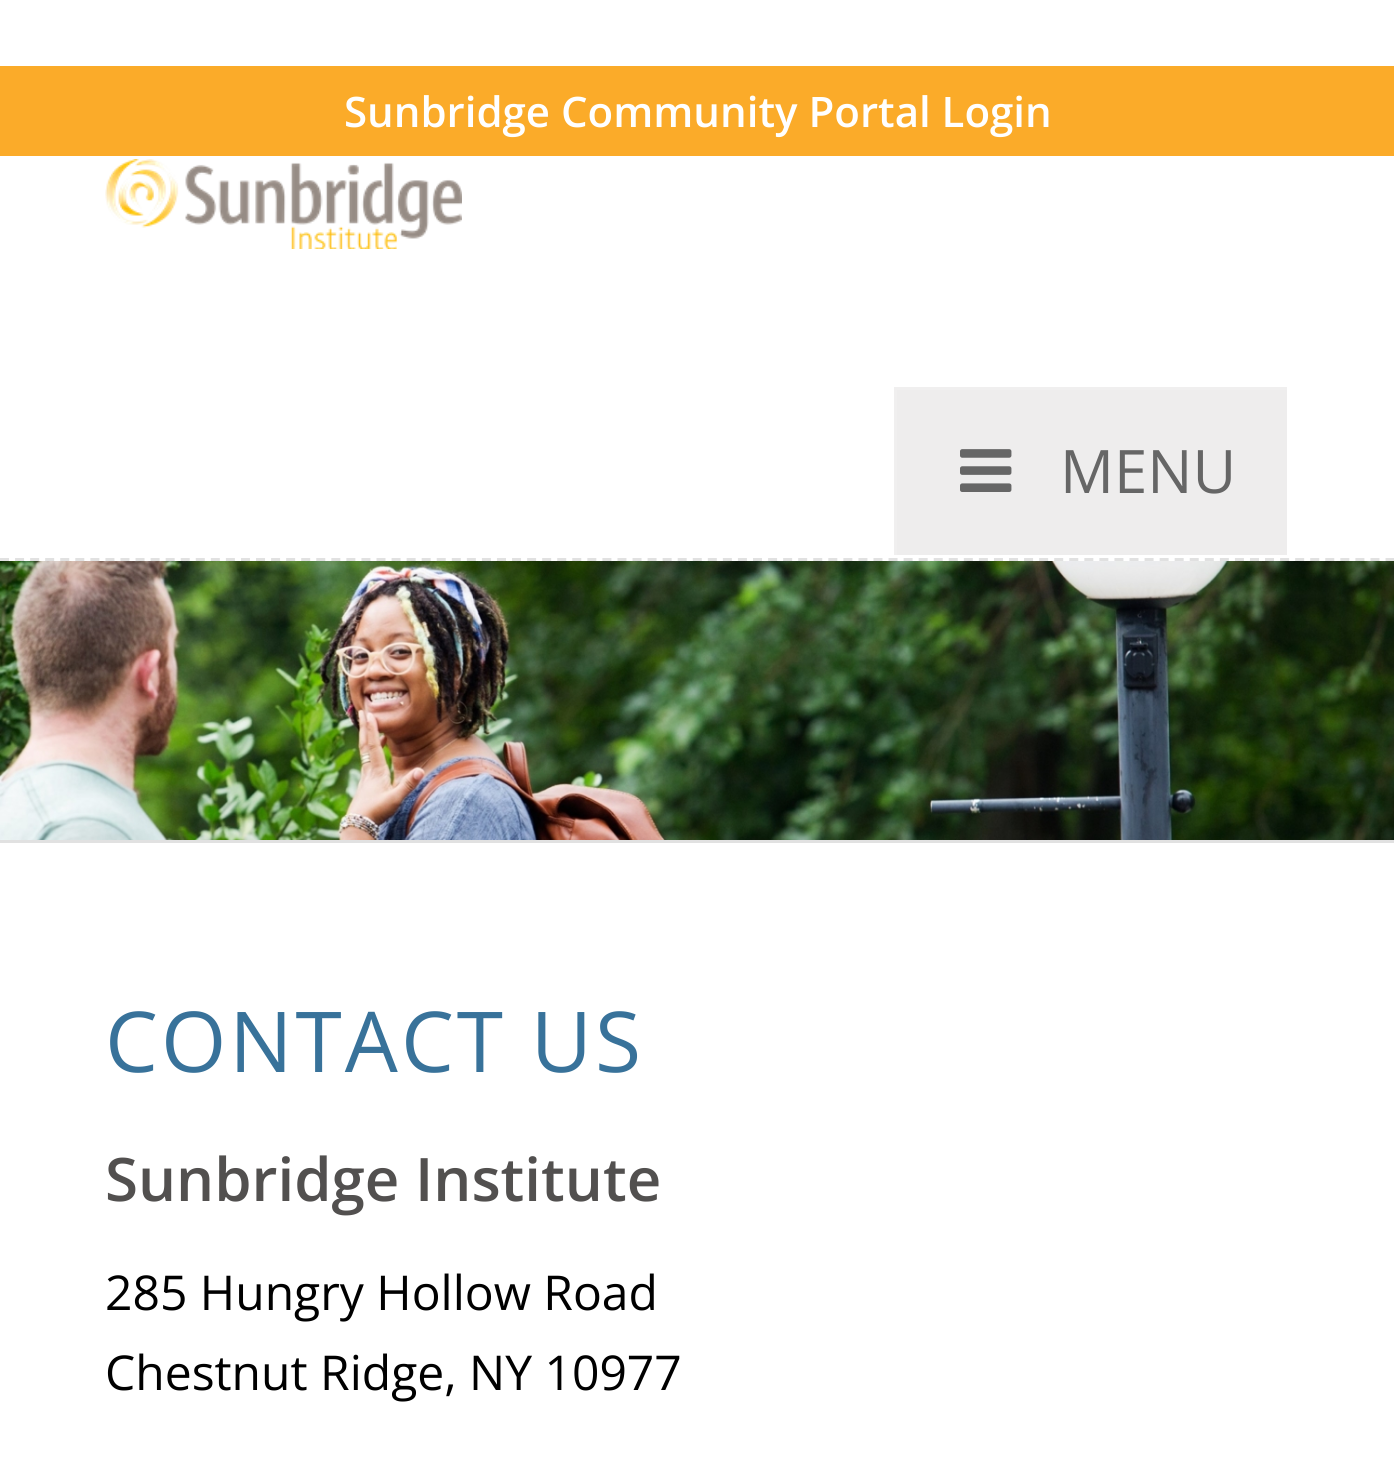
import math
import cairocffi as cairo

surface = cairo.ImageSurface(cairo.FORMAT_RGB24, 1394, 1474)
cr = cairo.Context(surface)
options = cairo.FontOptions()
options.set_hint_metrics(cairo.HINT_METRICS_OFF)
options.set_hint_style(cairo.HINT_STYLE_NONE)
cr.set_font_options(options)
cr.set_miter_limit(4)


def use_color(code):
    cr.set_source_rgb(*(v / 255 for v in bytes.fromhex(code[-6:])))


def spaced_text(x, y, s, letter, word):
    cr.move_to(x, y)
    for ch in s:
        cr.show_text(ch)
        cr.rel_move_to(letter + word * (ch == ' '), 0)


def picture(path, x, y, w, h):
    cr.save()
    cr.set_source_surface(cairo.ImageSurface.create_from_png(path), x, y)
    cr.rectangle(x, y, w, h)
    cr.fill()
    cr.restore()


use_color("#ffffff")
cr.paint()
use_color("#fbab29")
cr.rectangle(0, 66, 1394, 90)
cr.fill()
cr.select_font_face("Open Sans SemiBold")
cr.set_font_size(42)
use_color("#ffffff")
cr.move_to(344, 127)
cr.show_text("Sunbridge Community Portal Login")
cr.new_path()
cr.move_to(0, 559.5)
cr.line_to(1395, 559.5)
use_color("#e1e1e1")
cr.set_line_width(3)
cr.set_dash([9, 6.06])
cr.stroke()
picture("img1.png", 105, 159, 357, 90)
use_color("#eeeded")
cr.rectangle(897, 390, 390, 165)
cr.fill()
cr.save()
cr.rectangle(894, 387, 393, 168)
cr.clip()
use_color("#f0efef")
cr.set_fill_rule(cairo.FILL_RULE_EVEN_ODD)
cr.new_path()
cr.move_to(597, 90)
cr.line_to(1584, 90)
cr.line_to(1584, 852)
cr.line_to(597, 852)
cr.close_path()
cr.move_to(897, 390)
cr.line_to(1290, 390)
cr.line_to(1290, 558)
cr.line_to(897, 558)
cr.close_path()
cr.fill()
cr.restore()
picture("img2.png", 960, 449, 52, 43)
cr.select_font_face("Open Sans")
cr.set_font_size(60)
use_color("#666666")
cr.move_to(1060, 493)
cr.show_text("MENU")
picture("img3.png", 0, 561, 1394, 279)
use_color("#e1e1e1")
cr.rectangle(0, 840, 1394, 3)
cr.fill()
cr.set_font_size(84)
use_color("#38729a")
spaced_text(105, 1072, "CONTACT US", 3, 0)
cr.select_font_face("Open Sans SemiBold")
cr.set_font_size(60)
use_color("#52504f")
cr.move_to(105, 1201)
cr.show_text("Sunbridge Institute")
cr.select_font_face("Open Sans")
cr.set_font_size(48)
use_color("#000000")
cr.move_to(105, 1310)
cr.show_text("285 Hungry Hollow Road")
cr.move_to(105, 1390)
cr.show_text("Chestnut Ridge, NY 10977")
surface.write_to_png("result.png")
